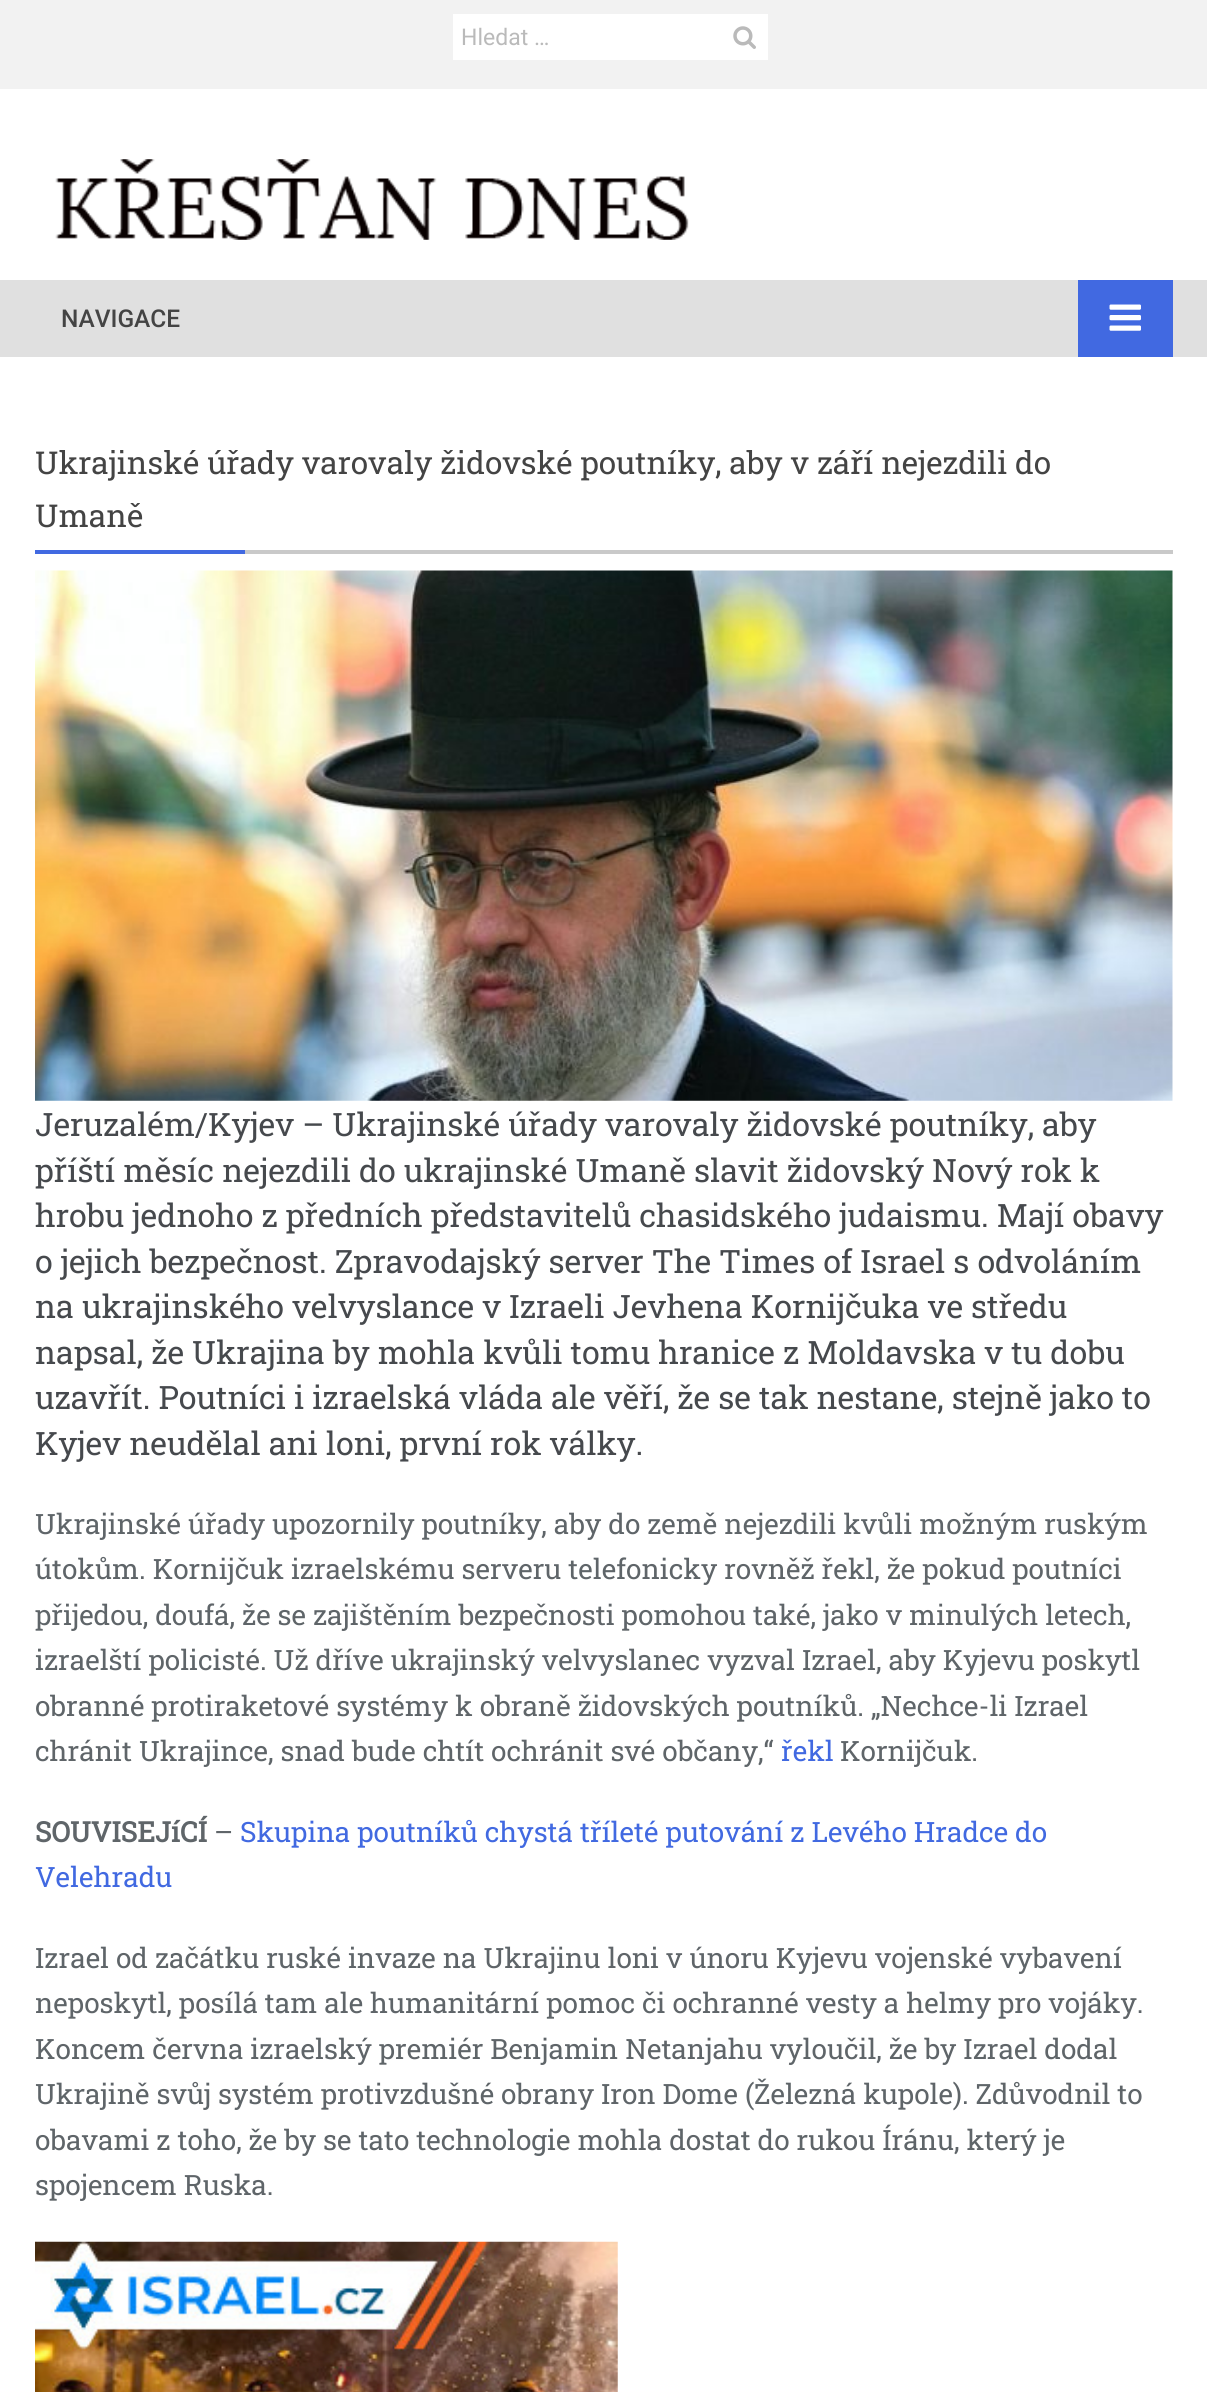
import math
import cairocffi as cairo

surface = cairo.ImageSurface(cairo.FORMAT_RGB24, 1207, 2392)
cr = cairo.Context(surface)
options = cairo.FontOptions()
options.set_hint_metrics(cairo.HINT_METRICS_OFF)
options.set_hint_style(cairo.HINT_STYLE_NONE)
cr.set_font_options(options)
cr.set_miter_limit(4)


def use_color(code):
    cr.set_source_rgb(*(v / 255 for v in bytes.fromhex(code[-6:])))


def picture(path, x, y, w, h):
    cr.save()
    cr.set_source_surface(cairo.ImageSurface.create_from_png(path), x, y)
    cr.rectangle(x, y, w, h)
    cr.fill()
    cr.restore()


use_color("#ffffff")
cr.paint()
use_color("#f2f2f2")
cr.rectangle(0, 0, 1207, 89)
cr.fill()
use_color("#ffffff")
cr.rectangle(453, 14, 315, 46)
cr.fill()
cr.select_font_face("Roboto")
cr.set_font_size(23)
use_color("#bababa")
cr.move_to(461, 45)
cr.show_text("Hledat …")
picture("img1.png", 733, 26, 23, 23)
picture("img2.png", 55, 159, 634, 81)
use_color("#e0e0e0")
cr.rectangle(0, 280, 1207, 77)
cr.fill()
cr.select_font_face("Roboto Medium")
cr.set_font_size(24.5)
use_color("#444444")
cr.move_to(61, 327)
cr.show_text("NAVIGACE")
use_color("#4169e1")
cr.rectangle(1078, 280, 95, 77)
cr.fill()
picture("img3.png", 1109, 304, 32, 27)
use_color("#c9c9c9")
cr.rectangle(245, 550, 928, 4)
cr.fill()
cr.select_font_face("Roboto Slab")
cr.set_font_size(31.5)
use_color("#444444")
cr.move_to(35, 474)
cr.show_text("Ukrajinské úřady varovaly židovské poutníky, aby v září nejezdili do")
cr.move_to(35, 527)
cr.show_text("Umaně")
use_color("#4169e1")
cr.rectangle(35, 550, 210, 4)
cr.fill()
picture("img4.png", 35, 570, 1138, 531)
cr.set_font_size(32.2)
use_color("#46494d")
cr.move_to(35, 1136)
cr.show_text("Jeruzalém/Kyjev – Ukrajinské úřady varovaly židovské poutníky, aby")
cr.move_to(35, 1182)
cr.show_text("příští měsíc nejezdili do ukrajinské Umaně slavit židovský Nový rok k")
cr.move_to(35, 1227)
cr.show_text("hrobu jednoho z předních představitelů chasidského judaismu. Mají obavy")
cr.move_to(35, 1273)
cr.show_text("o jejich bezpečnost. Zpravodajský server The Times of Israel s odvoláním")
cr.move_to(35, 1318)
cr.show_text("na ukrajinského velvyslance v Izraeli Jevhena Kornijčuka ve středu")
cr.move_to(35, 1364)
cr.show_text("napsal, že Ukrajina by mohla kvůli tomu hranice z Moldavska v tu dobu")
cr.move_to(35, 1409)
cr.show_text("uzavřít. Poutníci i izraelská vláda ale věří, že se tak nestane, stejně jako to")
cr.move_to(35, 1455)
cr.show_text("Kyjev neudělal ani loni, první rok války.")
cr.set_font_size(28)
use_color("#5f6569")
cr.move_to(35, 1534)
cr.show_text("Ukrajinské úřady upozornily poutníky, aby do země nejezdili kvůli možným ruským")
cr.move_to(35, 1579)
cr.show_text("útokům. Kornijčuk izraelskému serveru telefonicky rovněž řekl, že pokud poutníci")
cr.move_to(35, 1625)
cr.show_text("přijedou, doufá, že se zajištěním bezpečnosti pomohou také, jako v minulých letech,")
cr.move_to(35, 1670)
cr.show_text("izraelští policisté. Už dříve ukrajinský velvyslanec vyzval Izrael, aby Kyjevu poskytl")
cr.move_to(35, 1716)
cr.show_text("obranné protiraketové systémy k obraně židovských poutníků. „Nechce-li Izrael")
cr.move_to(35, 1761)
cr.show_text("chránit Ukrajince, snad bude chtít ochránit své občany,“")
use_color("#4169e1")
cr.move_to(781, 1761)
cr.show_text("řekl")
use_color("#5f6569")
cr.move_to(840, 1761)
cr.show_text("Kornijčuk.")
cr.select_font_face("Roboto Slab", cairo.FONT_SLANT_NORMAL, cairo.FONT_WEIGHT_BOLD)
cr.move_to(35, 1842)
cr.show_text("SOUVISEJíCÍ")
cr.select_font_face("Roboto Slab")
cr.move_to(214, 1842)
cr.show_text("–")
use_color("#4169e1")
cr.move_to(240, 1842)
cr.show_text("Skupina poutníků chystá tříleté putování z Levého Hradce do")
cr.move_to(35, 1887)
cr.show_text("Velehradu")
use_color("#5f6569")
cr.move_to(35, 1968)
cr.show_text("Izrael od začátku ruské invaze na Ukrajinu loni v únoru Kyjevu vojenské vybavení")
cr.move_to(35, 2013)
cr.show_text("neposkytl, posílá tam ale humanitární pomoc či ochranné vesty a helmy pro vojáky.")
cr.move_to(35, 2059)
cr.show_text("Koncem června izraelský premiér Benjamin Netanjahu vyloučil, že by Izrael dodal")
cr.move_to(35, 2104)
cr.show_text("Ukrajině svůj systém protivzdušné obrany Iron Dome (Železná kupole). Zdůvodnil to")
cr.move_to(35, 2150)
cr.show_text("obavami z toho, že by se tato technologie mohla dostat do rukou Íránu, který je")
cr.move_to(35, 2195)
cr.show_text("spojencem Ruska.")
picture("img5.png", 35, 2241, 583, 151)
surface.write_to_png("result.png")
